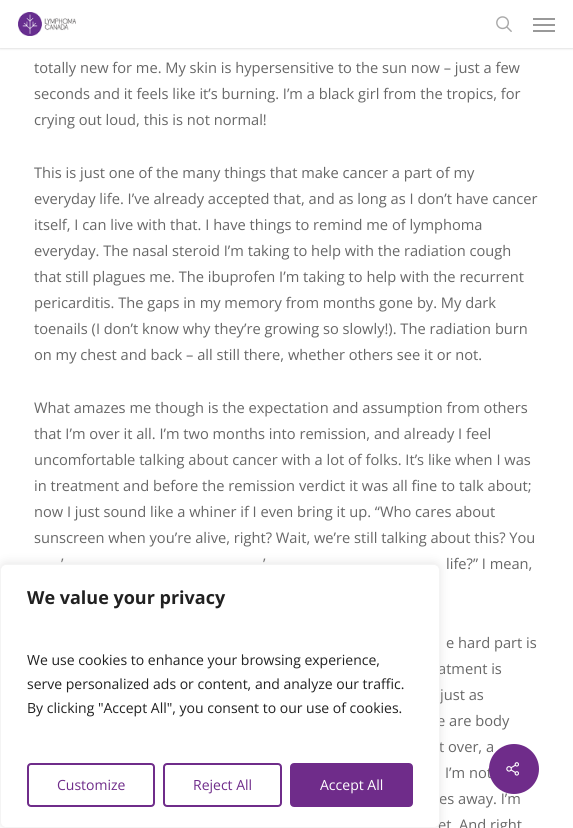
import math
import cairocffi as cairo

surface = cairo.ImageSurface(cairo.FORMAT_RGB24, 573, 828)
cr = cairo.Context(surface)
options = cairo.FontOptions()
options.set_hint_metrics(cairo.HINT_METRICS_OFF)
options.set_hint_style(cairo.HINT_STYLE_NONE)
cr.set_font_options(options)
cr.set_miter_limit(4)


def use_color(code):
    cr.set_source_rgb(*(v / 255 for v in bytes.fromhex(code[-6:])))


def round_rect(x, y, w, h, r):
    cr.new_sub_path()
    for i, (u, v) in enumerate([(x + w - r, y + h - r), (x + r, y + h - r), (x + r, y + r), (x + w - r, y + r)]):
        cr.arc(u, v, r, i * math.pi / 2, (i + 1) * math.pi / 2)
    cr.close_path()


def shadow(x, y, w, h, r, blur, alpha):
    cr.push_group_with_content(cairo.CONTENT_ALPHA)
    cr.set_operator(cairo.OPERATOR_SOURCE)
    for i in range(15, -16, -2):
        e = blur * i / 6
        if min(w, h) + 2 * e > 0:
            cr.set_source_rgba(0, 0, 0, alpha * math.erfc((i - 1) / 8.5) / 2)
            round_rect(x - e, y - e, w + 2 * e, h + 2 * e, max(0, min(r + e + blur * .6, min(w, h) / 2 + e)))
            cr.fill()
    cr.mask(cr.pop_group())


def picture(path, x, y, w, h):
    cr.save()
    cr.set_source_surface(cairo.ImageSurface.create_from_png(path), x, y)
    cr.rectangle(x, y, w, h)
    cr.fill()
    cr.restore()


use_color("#ffffff")
cr.paint()
use_color("#000000")
shadow(0, 0, 573, 48, 0, 1.5, 0.22)
use_color("#ffffff")
cr.rectangle(0, 0, 573, 48)
cr.fill()
picture("img1.png", 18, 12, 58, 24)
picture("img2.png", 496, 16, 16, 16)
use_color("#999999")
cr.rectangle(533, 18, 22, 2)
cr.fill()
cr.rectangle(533, 30, 22, 2)
cr.fill()
cr.rectangle(533, 24, 22, 2)
cr.fill()
cr.select_font_face("Open Sans")
cr.set_font_size(14.65)
use_color("#676767")
cr.move_to(34, 73)
cr.show_text("totally new for me. My skin is hypersensitive to the sun now – just a few")
cr.move_to(34, 99)
cr.show_text("seconds and it feels like it’s burning. I’m a black girl from the tropics, for")
cr.move_to(34, 125)
cr.show_text("crying out loud, this is not normal!")
cr.move_to(34, 178)
cr.show_text("This is just one of the many things that make cancer a part of my")
cr.move_to(34, 204)
cr.show_text("everyday life. I’ve already accepted that, and as long as I don’t have cancer")
cr.move_to(34, 230)
cr.show_text("itself, I can live with that. I have things to remind me of lymphoma")
cr.move_to(34, 256)
cr.show_text("everyday. The nasal steroid I’m taking to help with the radiation cough")
cr.move_to(34, 282)
cr.show_text("that still plagues me. The ibuprofen I’m taking to help with the recurrent")
cr.move_to(34, 308)
cr.show_text("pericarditis. The gaps in my memory from months gone by. My dark")
cr.move_to(34, 334)
cr.show_text("toenails (I don’t know why they’re growing so slowly!). The radiation burn")
cr.move_to(34, 360)
cr.show_text("on my chest and back – all still there, whether others see it or not.")
cr.move_to(34, 413)
cr.show_text("What amazes me though is the expectation and assumption from others")
cr.move_to(34, 439)
cr.show_text("that I’m over it all. I’m two months into remission, and already I feel")
cr.move_to(34, 465)
cr.show_text("uncomfortable talking about cancer with a lot of folks. It’s like when I was")
cr.move_to(34, 491)
cr.show_text("in treatment and before the remission verdict it was all fine to talk about;")
cr.move_to(34, 517)
cr.show_text("now I just sound like a whiner if I even bring it up. “Who cares about")
cr.move_to(34, 543)
cr.show_text("sunscreen when you’re alive, right? Wait, we’re still talking about this? You")
cr.move_to(61, 569)
cr.show_text("’")
cr.move_to(263, 569)
cr.show_text("’")
cr.move_to(446, 569)
cr.show_text("life?” I mean,")
cr.move_to(446, 648)
cr.show_text("e hard part is")
cr.move_to(438, 674)
cr.show_text("atment is")
cr.move_to(440, 700)
cr.show_text("just as")
cr.move_to(437, 726)
cr.show_text("e are body")
cr.move_to(439, 752)
cr.show_text("t over, a")
cr.move_to(445, 778)
cr.show_text("I’m not")
cr.move_to(439, 804)
cr.show_text("es away. I’m")
cr.move_to(438, 830)
cr.show_text("et. And right")
use_color("#6f2c8a")
cr.new_path()
cr.arc(514, 769, 25, 0, 2 * math.pi)
cr.fill()
picture("img3.png", 506, 762, 13, 14)
use_color("#acabab")
shadow(0, 563, 440, 264, 6, 5, 0.3)
use_color("#ffffff")
round_rect(0.5, 564.5, 439, 263, 5.5)
cr.fill_preserve()
use_color("#f4f4f4")
cr.set_line_width(1)
cr.stroke()
cr.select_font_face("Open Sans", cairo.FONT_SLANT_NORMAL, cairo.FONT_WEIGHT_BOLD)
cr.set_font_size(18)
use_color("#212121")
cr.move_to(27, 604)
cr.show_text("We value your privacy")
cr.select_font_face("Open Sans")
cr.set_font_size(14)
cr.move_to(27, 665)
cr.show_text("We use cookies to enhance your browsing experience,")
cr.move_to(27, 689)
cr.show_text("serve personalized ads or content, and analyze our traffic.")
cr.move_to(27, 713)
cr.show_text("By clicking \"Accept All\", you consent to our use of cookies.")
round_rect(28, 764, 126, 42, 3)
use_color("#6f2c8a")
cr.set_line_width(2)
cr.stroke()
cr.move_to(57, 790)
cr.show_text("Customize")
round_rect(164, 764, 117, 42, 3)
cr.stroke()
cr.move_to(193, 790)
cr.show_text("Reject All")
round_rect(291, 764, 121, 42, 3)
cr.fill_preserve()
cr.stroke()
use_color("#ffffff")
cr.move_to(320, 790)
cr.show_text("Accept All")
surface.write_to_png("result.png")
